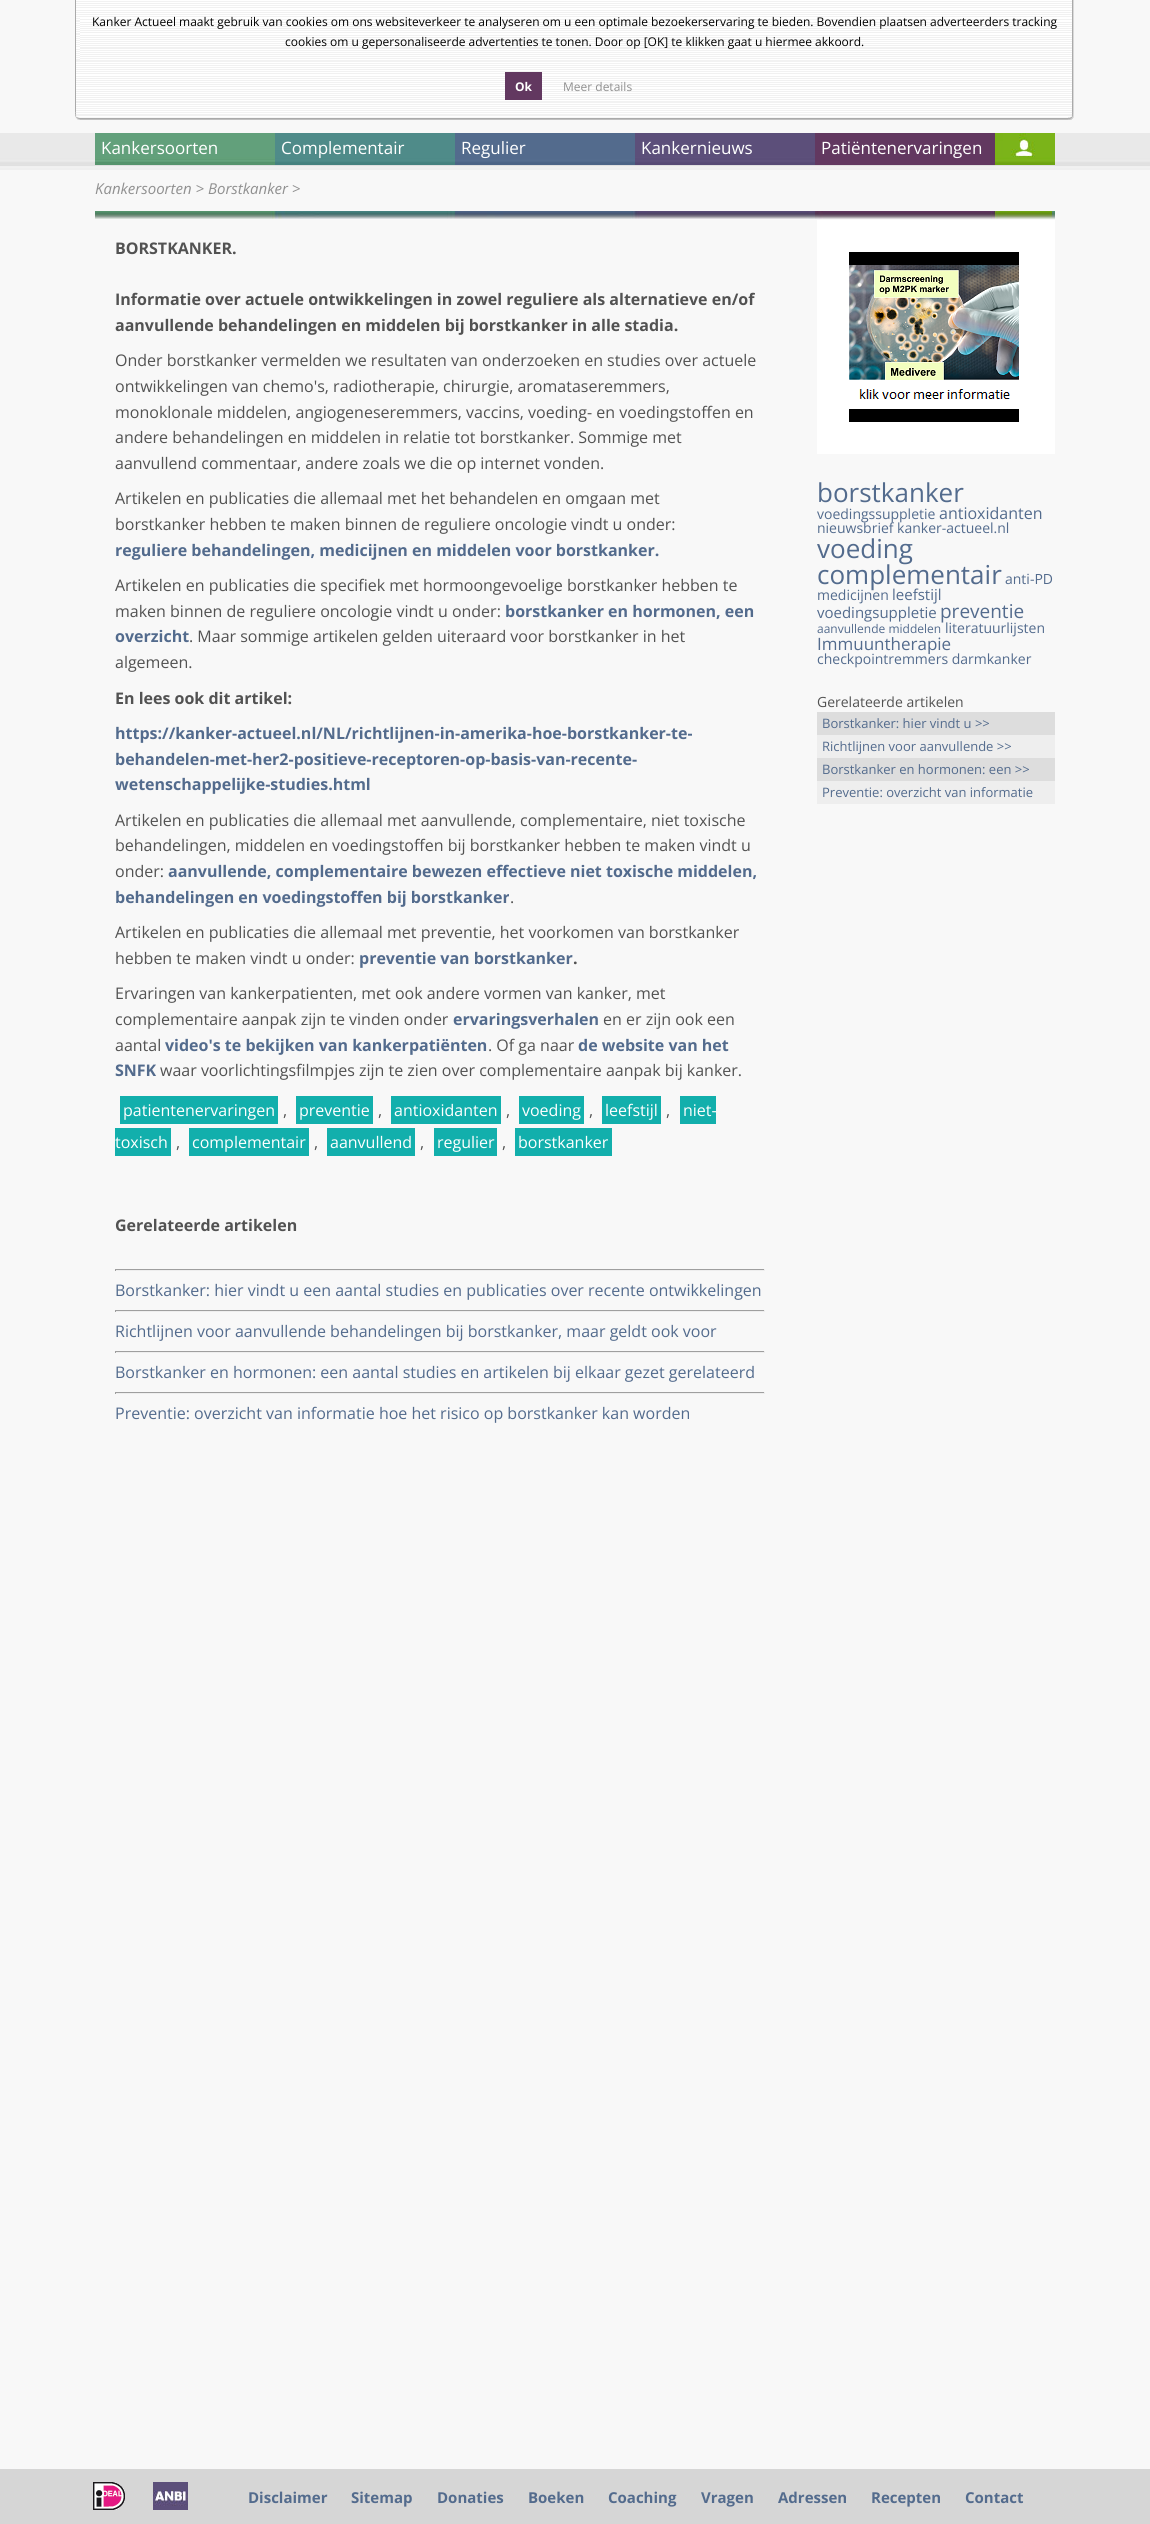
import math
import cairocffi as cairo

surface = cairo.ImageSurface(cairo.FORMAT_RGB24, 1150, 2524)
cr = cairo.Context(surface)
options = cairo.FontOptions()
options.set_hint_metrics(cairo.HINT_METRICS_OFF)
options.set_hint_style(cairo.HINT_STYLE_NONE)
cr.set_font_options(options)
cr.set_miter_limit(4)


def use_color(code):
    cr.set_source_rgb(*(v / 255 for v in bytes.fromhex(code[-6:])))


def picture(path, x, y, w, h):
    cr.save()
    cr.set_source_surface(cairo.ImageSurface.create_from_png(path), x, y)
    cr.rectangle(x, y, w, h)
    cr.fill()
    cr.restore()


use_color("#f8f8f8")
cr.paint()
picture("img1.png", 0, 133, 1150, 37)
picture("img2.png", 75, 0, 999, 120)
cr.select_font_face("Open Sans")
cr.set_font_size(12)
use_color("#000000")
cr.move_to(92, 26)
cr.show_text("Kanker Actueel maakt gebruik van cookies om ons websiteverkeer te analyseren om u een optimale bezoekerservaring te bieden. Bovendien plaatsen adverteerders tracking")
cr.move_to(285, 46)
cr.show_text("cookies om u gepersonaliseerde advertenties te tonen. Door op [OK] te klikken gaat u hiermee akkoord.")
use_color("#623860")
cr.rectangle(505, 72, 37, 28)
cr.fill()
cr.select_font_face("Open Sans", cairo.FONT_SLANT_NORMAL, cairo.FONT_WEIGHT_BOLD)
use_color("#ffffff")
cr.move_to(515, 91)
cr.show_text("Ok")
cr.select_font_face("Open Sans")
use_color("#909090")
cr.move_to(563, 91)
cr.show_text("Meer details")
picture("img3.png", 95, 133, 180, 32)
cr.set_font_size(17)
use_color("#ffffff")
cr.move_to(101, 154)
cr.show_text("Kankersoorten")
picture("img4.png", 275, 133, 180, 32)
cr.move_to(281, 154)
cr.show_text("Complementair")
picture("img5.png", 455, 133, 180, 32)
cr.move_to(461, 154)
cr.show_text("Regulier")
picture("img6.png", 635, 133, 180, 32)
cr.move_to(641, 154)
cr.show_text("Kankernieuws")
use_color("#623860")
cr.rectangle(815, 133, 180, 32)
cr.fill()
use_color("#ffffff")
cr.move_to(821, 154)
cr.show_text("Patiëntenervaringen")
picture("img7.png", 995, 133, 60, 32)
cr.select_font_face("Open Sans", cairo.FONT_SLANT_ITALIC)
cr.set_font_size(15)
use_color("#909090")
cr.move_to(95, 194)
cr.show_text("Kankersoorten > Borstkanker >")
picture("img8.png", 95, 211, 960, 8)
cr.select_font_face("Open Sans", cairo.FONT_SLANT_NORMAL, cairo.FONT_WEIGHT_BOLD)
cr.set_font_size(16)
use_color("#525252")
cr.move_to(115, 254)
cr.show_text("BORSTKANKER.")
cr.move_to(115, 305)
cr.show_text("Informatie over actuele ontwikkelingen in zowel reguliere als alternatieve en/of")
cr.move_to(115, 331)
cr.show_text("aanvullende behandelingen en middelen bij borstkanker in alle stadia.")
cr.select_font_face("Open Sans")
cr.move_to(115, 366)
cr.show_text("Onder borstkanker vermelden we resultaten van onderzoeken en studies over actuele")
cr.move_to(115, 392)
cr.show_text("ontwikkelingen van chemo's, radiotherapie, chirurgie, aromataseremmers,")
cr.move_to(115, 418)
cr.show_text("monoklonale middelen, angiogeneseremmers, vaccins, voeding- en voedingstoffen en")
cr.move_to(115, 443)
cr.show_text("andere behandelingen en middelen in relatie tot borstkanker. Sommige met")
cr.move_to(115, 469)
cr.show_text("aanvullend commentaar, andere zoals we die op internet vonden.")
cr.move_to(115, 504)
cr.show_text("Artikelen en publicaties die allemaal met het behandelen en omgaan met")
cr.move_to(115, 530)
cr.show_text("borstkanker hebben te maken binnen de reguliere oncologie vindt u onder:")
cr.select_font_face("Open Sans", cairo.FONT_SLANT_NORMAL, cairo.FONT_WEIGHT_BOLD)
use_color("#536b8d")
cr.move_to(115, 556)
cr.show_text("reguliere behandelingen, medicijnen en middelen voor borstkanker.")
cr.select_font_face("Open Sans")
use_color("#525252")
cr.move_to(115, 591)
cr.show_text("Artikelen en publicaties die specifiek met hormoongevoelige borstkanker hebben te")
cr.move_to(115, 617)
cr.show_text("maken binnen de reguliere oncologie vindt u onder:")
cr.select_font_face("Open Sans", cairo.FONT_SLANT_NORMAL, cairo.FONT_WEIGHT_BOLD)
use_color("#536b8d")
cr.move_to(505, 617)
cr.show_text("borstkanker en hormonen, een")
cr.move_to(115, 642)
cr.show_text("overzicht")
cr.select_font_face("Open Sans")
use_color("#525252")
cr.move_to(189, 642)
cr.show_text(". Maar sommige artikelen gelden uiteraard voor borstkanker in het")
cr.move_to(115, 668)
cr.show_text("algemeen.")
cr.select_font_face("Open Sans", cairo.FONT_SLANT_NORMAL, cairo.FONT_WEIGHT_BOLD)
cr.move_to(115, 704)
cr.show_text("En lees ook dit artikel:")
use_color("#536b8d")
cr.move_to(115, 739)
cr.show_text("https://kanker-actueel.nl/NL/richtlijnen-in-amerika-hoe-borstkanker-te-")
cr.move_to(115, 765)
cr.show_text("behandelen-met-her2-positieve-receptoren-op-basis-van-recente-")
cr.move_to(115, 790)
cr.show_text("wetenschappelijke-studies.html")
cr.select_font_face("Open Sans")
use_color("#525252")
cr.move_to(115, 826)
cr.show_text("Artikelen en publicaties die allemaal met aanvullende, complementaire, niet toxische")
cr.move_to(115, 851)
cr.show_text("behandelingen, middelen en voedingstoffen bij borstkanker hebben te maken vindt u")
cr.move_to(115, 877)
cr.show_text("onder:")
cr.select_font_face("Open Sans", cairo.FONT_SLANT_NORMAL, cairo.FONT_WEIGHT_BOLD)
use_color("#536b8d")
cr.move_to(168, 877)
cr.show_text("aanvullende, complementaire bewezen effectieve niet toxische middelen,")
cr.move_to(115, 903)
cr.show_text("behandelingen en voedingstoffen bij borstkanker")
cr.select_font_face("Open Sans")
use_color("#525252")
cr.move_to(510, 903)
cr.show_text(".")
cr.move_to(115, 938)
cr.show_text("Artikelen en publicaties die allemaal met preventie, het voorkomen van borstkanker")
cr.move_to(115, 964)
cr.show_text("hebben te maken vindt u onder:")
cr.select_font_face("Open Sans", cairo.FONT_SLANT_NORMAL, cairo.FONT_WEIGHT_BOLD)
use_color("#536b8d")
cr.move_to(359, 964)
cr.show_text("preventie van borstkanker")
use_color("#525252")
cr.move_to(573, 964)
cr.show_text(".")
cr.select_font_face("Open Sans")
cr.move_to(115, 999)
cr.show_text("Ervaringen van kankerpatienten, met ook andere vormen van kanker, met")
cr.move_to(115, 1025)
cr.show_text("complementaire aanpak zijn te vinden onder")
cr.select_font_face("Open Sans", cairo.FONT_SLANT_NORMAL, cairo.FONT_WEIGHT_BOLD)
use_color("#536b8d")
cr.move_to(453, 1025)
cr.show_text("ervaringsverhalen")
cr.select_font_face("Open Sans")
use_color("#525252")
cr.move_to(603, 1025)
cr.show_text("en er zijn ook een")
cr.move_to(115, 1051)
cr.show_text("aantal")
cr.select_font_face("Open Sans", cairo.FONT_SLANT_NORMAL, cairo.FONT_WEIGHT_BOLD)
use_color("#536b8d")
cr.move_to(165, 1051)
cr.show_text("video's te bekijken van kankerpatiënten")
cr.select_font_face("Open Sans")
use_color("#525252")
cr.move_to(488, 1051)
cr.show_text(". Of ga naar")
cr.select_font_face("Open Sans", cairo.FONT_SLANT_NORMAL, cairo.FONT_WEIGHT_BOLD)
use_color("#536b8d")
cr.move_to(578, 1051)
cr.show_text("de website van het")
cr.move_to(115, 1076)
cr.show_text("SNFK")
cr.select_font_face("Open Sans")
use_color("#525252")
cr.move_to(160, 1076)
cr.show_text("waar voorlichtingsfilmpjes zijn te zien over complementaire aanpak bij kanker.")
use_color("#12afac")
cr.rectangle(120, 1096, 158, 28)
cr.fill()
use_color("#ffffff")
cr.move_to(123, 1116)
cr.show_text("patientenervaringen")
use_color("#525252")
cr.move_to(283, 1116)
cr.show_text(",")
use_color("#12afac")
cr.rectangle(296, 1096, 77, 28)
cr.fill()
use_color("#ffffff")
cr.move_to(299, 1116)
cr.show_text("preventie")
use_color("#525252")
cr.move_to(378, 1116)
cr.show_text(",")
use_color("#12afac")
cr.rectangle(391, 1096, 110, 28)
cr.fill()
use_color("#ffffff")
cr.move_to(394, 1116)
cr.show_text("antioxidanten")
use_color("#525252")
cr.move_to(506, 1116)
cr.show_text(",")
use_color("#12afac")
cr.rectangle(519, 1096, 65, 28)
cr.fill()
use_color("#ffffff")
cr.move_to(522, 1116)
cr.show_text("voeding")
use_color("#525252")
cr.move_to(589, 1116)
cr.show_text(",")
use_color("#12afac")
cr.rectangle(602, 1096, 59, 28)
cr.fill()
use_color("#ffffff")
cr.move_to(605, 1116)
cr.show_text("leefstijl")
use_color("#525252")
cr.move_to(666, 1116)
cr.show_text(",")
use_color("#12afac")
cr.rectangle(680, 1096, 36, 28)
cr.fill()
use_color("#ffffff")
cr.move_to(683, 1116)
cr.show_text("niet-")
use_color("#12afac")
cr.rectangle(115, 1128, 56, 28)
cr.fill()
use_color("#ffffff")
cr.move_to(115, 1148)
cr.show_text("toxisch")
use_color("#525252")
cr.move_to(176, 1148)
cr.show_text(",")
use_color("#12afac")
cr.rectangle(189, 1128, 120, 28)
cr.fill()
use_color("#ffffff")
cr.move_to(192, 1148)
cr.show_text("complementair")
use_color("#525252")
cr.move_to(314, 1148)
cr.show_text(",")
use_color("#12afac")
cr.rectangle(327, 1128, 88, 28)
cr.fill()
use_color("#ffffff")
cr.move_to(330, 1148)
cr.show_text("aanvullend")
use_color("#525252")
cr.move_to(420, 1148)
cr.show_text(",")
use_color("#12afac")
cr.rectangle(434, 1128, 63, 28)
cr.fill()
use_color("#ffffff")
cr.move_to(437, 1148)
cr.show_text("regulier")
use_color("#525252")
cr.move_to(502, 1148)
cr.show_text(",")
use_color("#12afac")
cr.rectangle(515, 1128, 97, 28)
cr.fill()
use_color("#ffffff")
cr.move_to(518, 1148)
cr.show_text("borstkanker")
cr.select_font_face("Open Sans", cairo.FONT_SLANT_NORMAL, cairo.FONT_WEIGHT_BOLD)
use_color("#525252")
cr.move_to(115, 1231)
cr.show_text("Gerelateerde artikelen")
use_color("#9f9f9f")
cr.rectangle(115, 1269, 650, 1)
cr.fill()
use_color("#eeeeee")
cr.rectangle(764, 1269, 1, 2)
cr.fill()
cr.rectangle(115, 1270, 650, 1)
cr.fill()
use_color("#9f9f9f")
cr.rectangle(115, 1269, 1, 2)
cr.fill()
cr.select_font_face("Open Sans")
use_color("#536b8d")
cr.move_to(115, 1296)
cr.show_text("Borstkanker: hier vindt u een aantal studies en publicaties over recente ontwikkelingen")
use_color("#9f9f9f")
cr.rectangle(115, 1310, 650, 1)
cr.fill()
use_color("#eeeeee")
cr.rectangle(764, 1310, 1, 2)
cr.fill()
cr.rectangle(115, 1311, 650, 1)
cr.fill()
use_color("#9f9f9f")
cr.rectangle(115, 1310, 1, 2)
cr.fill()
use_color("#536b8d")
cr.move_to(115, 1337)
cr.show_text("Richtlijnen voor aanvullende behandelingen bij borstkanker, maar geldt ook voor")
use_color("#9f9f9f")
cr.rectangle(115, 1351, 650, 1)
cr.fill()
use_color("#eeeeee")
cr.rectangle(764, 1351, 1, 2)
cr.fill()
cr.rectangle(115, 1352, 650, 1)
cr.fill()
use_color("#9f9f9f")
cr.rectangle(115, 1351, 1, 2)
cr.fill()
use_color("#536b8d")
cr.move_to(115, 1378)
cr.show_text("Borstkanker en hormonen: een aantal studies en artikelen bij elkaar gezet gerelateerd")
use_color("#9f9f9f")
cr.rectangle(115, 1392, 650, 1)
cr.fill()
use_color("#eeeeee")
cr.rectangle(764, 1392, 1, 2)
cr.fill()
cr.rectangle(115, 1393, 650, 1)
cr.fill()
use_color("#9f9f9f")
cr.rectangle(115, 1392, 1, 2)
cr.fill()
use_color("#536b8d")
cr.move_to(115, 1419)
cr.show_text("Preventie: overzicht van informatie hoe het risico op borstkanker kan worden")
use_color("#ffffff")
cr.rectangle(817, 220, 238, 234)
cr.fill()
use_color("#000000")
cr.rectangle(849, 252, 170, 170)
cr.fill()
picture("img9.png", 849, 265, 170, 144)
cr.set_font_size(26)
use_color("#536b8d")
cr.move_to(817, 502)
cr.show_text("borstkanker")
cr.set_font_size(14)
cr.move_to(817, 519)
cr.show_text("voedingssuppletie")
cr.set_font_size(16)
cr.move_to(939, 519)
cr.show_text("antioxidanten")
cr.set_font_size(14)
cr.move_to(817, 533)
cr.show_text("nieuwsbrief kanker-actueel.nl")
cr.set_font_size(26)
cr.move_to(817, 558)
cr.show_text("voeding")
cr.move_to(817, 584)
cr.show_text("complementair")
cr.set_font_size(14)
cr.move_to(1005, 584)
cr.show_text("anti-PD")
cr.move_to(817, 600)
cr.show_text("medicijnen")
cr.set_font_size(15)
cr.move_to(892, 600)
cr.show_text("leefstijl")
cr.move_to(817, 618)
cr.show_text("voedingsuppletie")
cr.set_font_size(19)
cr.move_to(940, 618)
cr.show_text("preventie")
cr.set_font_size(12)
cr.move_to(817, 633)
cr.show_text("aanvullende middelen")
cr.set_font_size(14)
cr.move_to(945, 633)
cr.show_text("literatuurlijsten")
cr.set_font_size(17)
cr.move_to(817, 650)
cr.show_text("Immuuntherapie")
cr.set_font_size(14)
cr.move_to(817, 664)
cr.show_text("checkpointremmers darmkanker")
use_color("#525252")
cr.move_to(817, 707)
cr.show_text("Gerelateerde artikelen")
use_color("#dddddd")
cr.rectangle(817, 712, 238, 23)
cr.fill()
cr.set_font_size(13)
use_color("#536b8d")
cr.move_to(822, 728)
cr.show_text("Borstkanker: hier vindt u >>")
use_color("#eeeeee")
cr.rectangle(817, 735, 238, 23)
cr.fill()
use_color("#536b8d")
cr.move_to(822, 751)
cr.show_text("Richtlijnen voor aanvullende >>")
use_color("#dddddd")
cr.rectangle(817, 758, 238, 23)
cr.fill()
use_color("#536b8d")
cr.move_to(822, 774)
cr.show_text("Borstkanker en hormonen: een >>")
use_color("#eeeeee")
cr.rectangle(817, 781, 238, 23)
cr.fill()
use_color("#536b8d")
cr.move_to(822, 797)
cr.show_text("Preventie: overzicht van informatie")
use_color("#d6d6d6")
cr.rectangle(0, 2469, 1150, 55)
cr.fill()
picture("img10.png", 93, 2482, 32, 28)
picture("img11.png", 153, 2482, 35, 28)
cr.select_font_face("Open Sans", cairo.FONT_SLANT_NORMAL, cairo.FONT_WEIGHT_BOLD)
cr.set_font_size(15)
use_color("#536b8d")
cr.move_to(248, 2503)
cr.show_text("Disclaimer")
cr.move_to(351, 2503)
cr.show_text("Sitemap")
cr.move_to(437, 2503)
cr.show_text("Donaties")
cr.move_to(528, 2503)
cr.show_text("Boeken")
cr.move_to(608, 2503)
cr.show_text("Coaching")
cr.move_to(701, 2503)
cr.show_text("Vragen")
cr.move_to(778, 2503)
cr.show_text("Adressen")
cr.move_to(871, 2503)
cr.show_text("Recepten")
cr.move_to(965, 2503)
cr.show_text("Contact")
surface.write_to_png("result.png")
